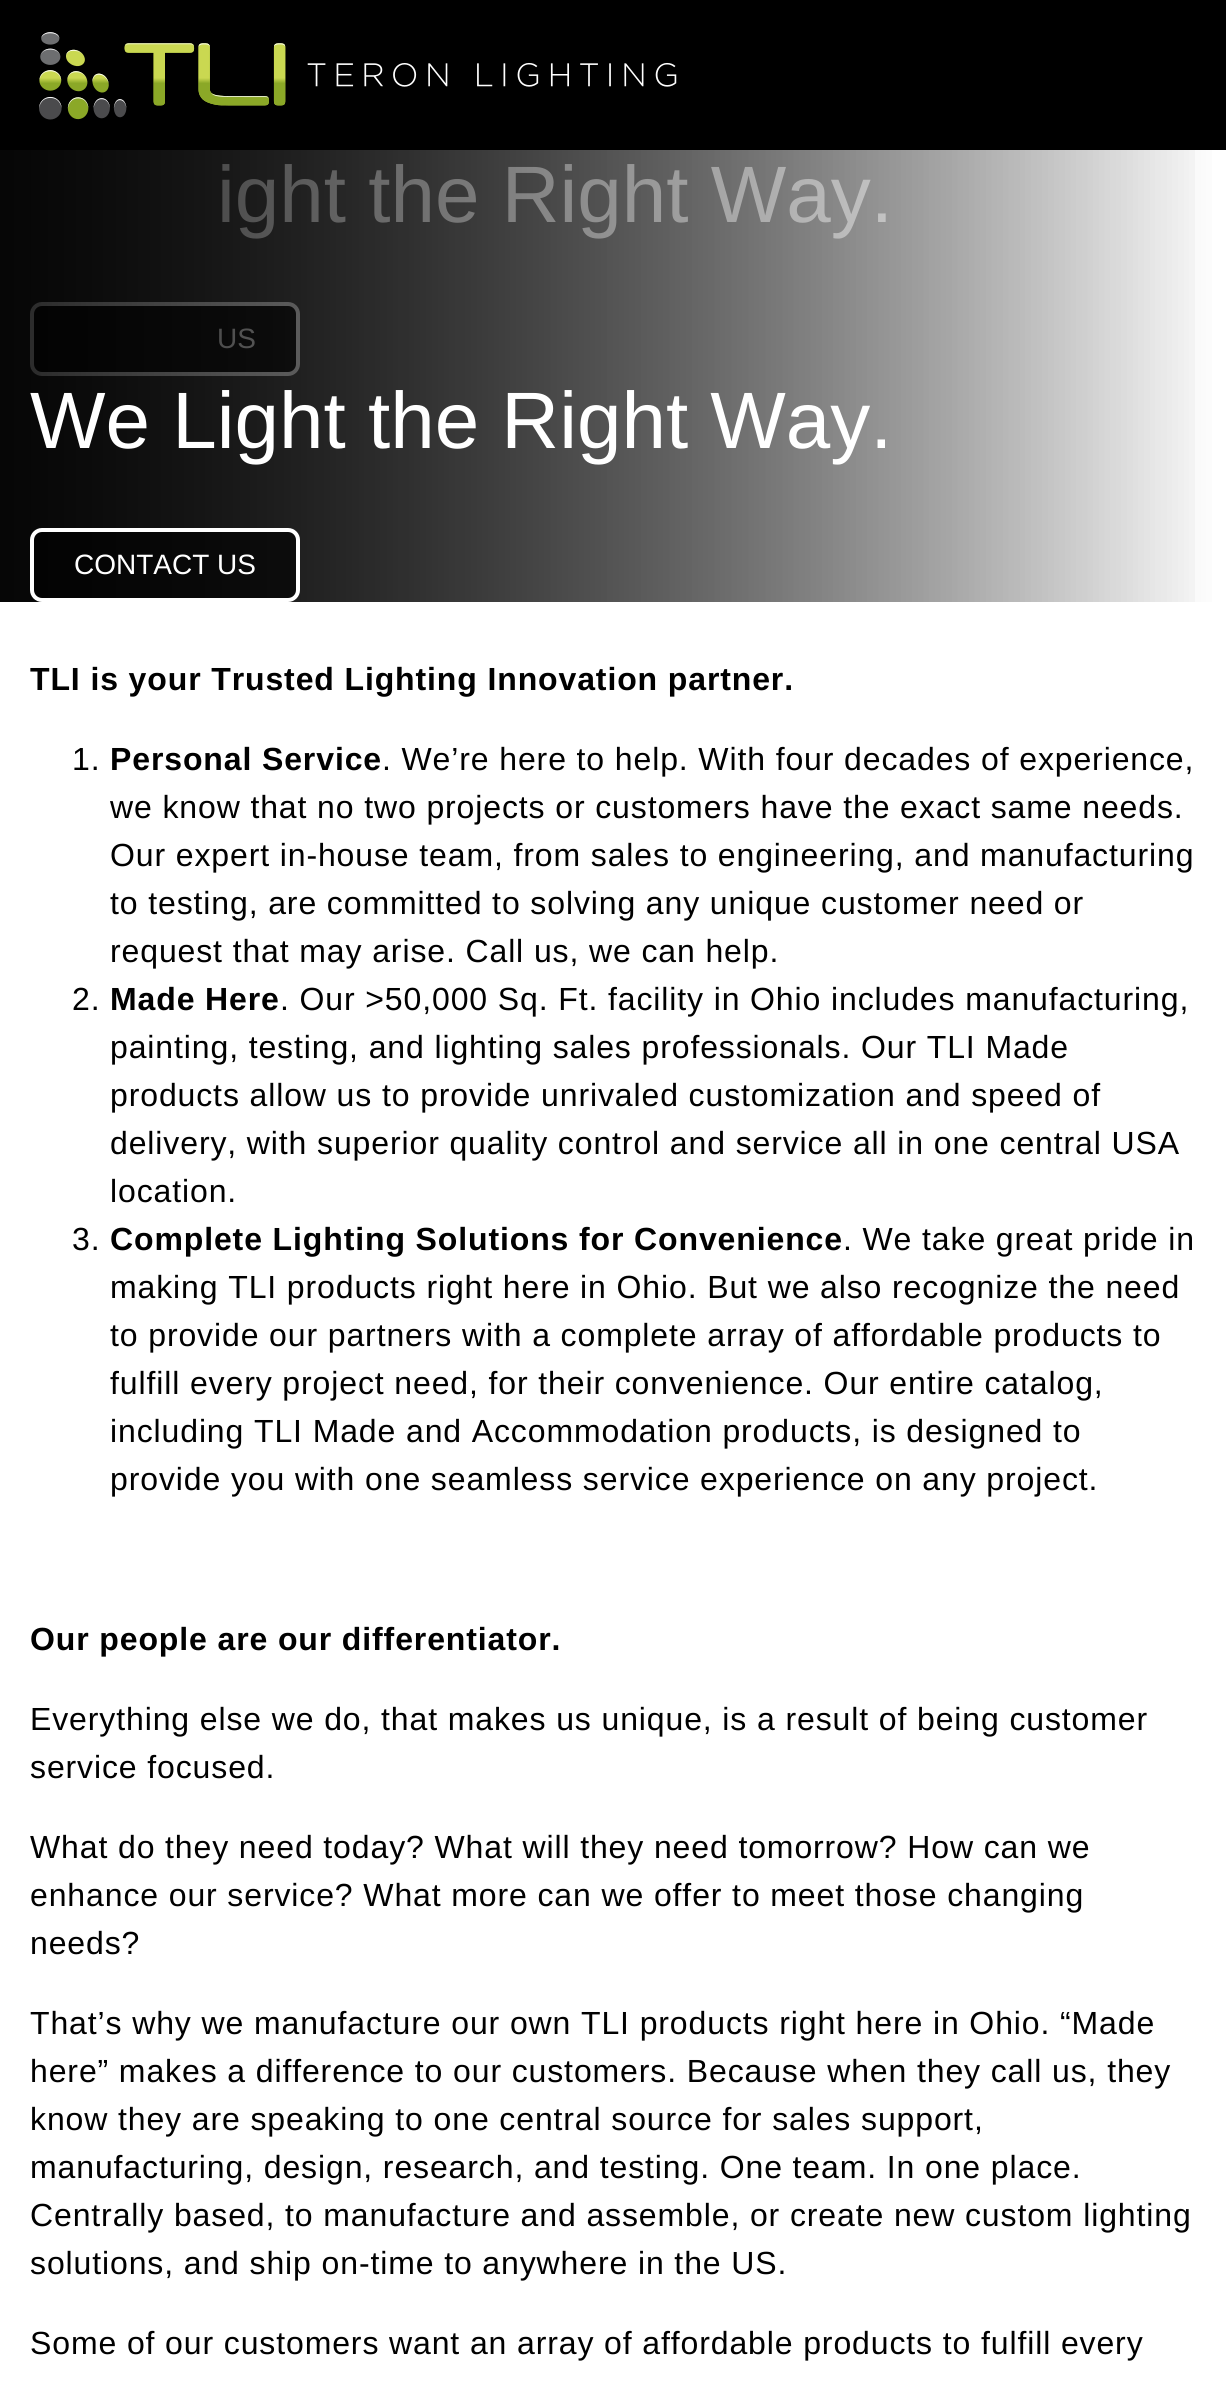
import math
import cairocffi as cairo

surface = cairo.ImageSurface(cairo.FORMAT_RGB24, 1226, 2382)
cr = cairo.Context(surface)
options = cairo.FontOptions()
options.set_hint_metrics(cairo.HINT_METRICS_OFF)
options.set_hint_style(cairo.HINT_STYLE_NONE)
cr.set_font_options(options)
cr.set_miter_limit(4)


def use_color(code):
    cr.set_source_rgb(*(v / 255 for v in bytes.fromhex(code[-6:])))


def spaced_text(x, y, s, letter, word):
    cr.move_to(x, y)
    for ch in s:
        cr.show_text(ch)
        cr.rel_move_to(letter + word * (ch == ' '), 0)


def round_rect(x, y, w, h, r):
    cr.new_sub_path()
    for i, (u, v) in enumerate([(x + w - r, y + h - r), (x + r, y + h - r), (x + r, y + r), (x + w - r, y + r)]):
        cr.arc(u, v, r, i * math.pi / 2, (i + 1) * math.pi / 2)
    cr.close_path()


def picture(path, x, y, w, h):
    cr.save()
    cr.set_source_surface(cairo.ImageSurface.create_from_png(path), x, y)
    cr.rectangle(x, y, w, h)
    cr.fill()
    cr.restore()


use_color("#ffffff")
cr.paint()
use_color("#000000")
cr.rectangle(0, 0, 1226, 150)
cr.fill()
picture("img1.png", 39, 32, 638, 88)
gradient = cairo.LinearGradient(0, 376, 1226, 376)
gradient.add_color_stop_rgba(0, 0.149, 0.149, 0.149, 1)
gradient.add_color_stop_rgba(1, 1, 1, 1, 1)
cr.set_source(gradient)
cr.rectangle(0, 150, 1212, 452)
cr.fill()
cr.select_font_face("Liberation Sans")
cr.set_font_size(80)
use_color("#ffffff")
cr.move_to(217, 222)
cr.show_text("ight the Right Way.")
cr.set_source_rgba(0, 0, 0, 0.6)
round_rect(32, 304, 266, 70, 10)
cr.fill_preserve()
use_color("#ffffff")
cr.set_line_width(4)
cr.stroke()
cr.set_font_size(28)
cr.move_to(217, 348)
cr.show_text("US")
gradient = cairo.LinearGradient(0, 376, 1226, 376)
gradient.add_color_stop_rgba(0, 0, 0, 0, 0.85)
gradient.add_color_stop_rgba(1, 0, 0, 0, 0)
cr.set_source(gradient)
cr.rectangle(0, 150, 1195, 452)
cr.fill()
cr.set_font_size(80)
use_color("#ffffff")
cr.move_to(30, 448)
cr.show_text("We Light the Right Way.")
cr.set_source_rgba(0, 0, 0, 0.6)
round_rect(32, 530, 266, 70, 10)
cr.fill_preserve()
use_color("#ffffff")
cr.stroke()
cr.set_font_size(28)
cr.move_to(74, 574)
cr.show_text("CONTACT US")
cr.select_font_face("Liberation Sans", cairo.FONT_SLANT_NORMAL, cairo.FONT_WEIGHT_BOLD)
cr.set_font_size(32)
use_color("#000000")
spaced_text(30, 690, "TLI is your Trusted Lighting Innovation partner.", 0.88, 0)
cr.select_font_face("Liberation Sans")
spaced_text(72, 770, "1.", 0.88, 0)
cr.select_font_face("Liberation Sans", cairo.FONT_SLANT_NORMAL, cairo.FONT_WEIGHT_BOLD)
spaced_text(110, 770, "Personal Service", 0.88, 0)
cr.select_font_face("Liberation Sans")
spaced_text(382, 770, ". We’re here to help. With four decades of experience,", 0.88, 0)
spaced_text(110, 818, "we know that no two projects or customers have the exact same needs.", 0.88, 0)
spaced_text(110, 866, "Our expert in-house team, from sales to engineering, and manufacturing", 0.88, 0)
spaced_text(110, 914, "to testing, are committed to solving any unique customer need or", 0.88, 0)
spaced_text(110, 962, "request that may arise. Call us, we can help.", 0.88, 0)
spaced_text(72, 1010, "2.", 0.88, 0)
cr.select_font_face("Liberation Sans", cairo.FONT_SLANT_NORMAL, cairo.FONT_WEIGHT_BOLD)
spaced_text(110, 1010, "Made Here", 0.88, 0)
cr.select_font_face("Liberation Sans")
spaced_text(280, 1010, ". Our >50,000 Sq. Ft. facility in Ohio includes manufacturing,", 0.88, 0)
spaced_text(110, 1058, "painting, testing, and lighting sales professionals. Our TLI Made", 0.88, 0)
spaced_text(110, 1106, "products allow us to provide unrivaled customization and speed of", 0.88, 0)
spaced_text(110, 1154, "delivery, with superior quality control and service all in one central USA", 0.88, 0)
spaced_text(110, 1202, "location.", 0.88, 0)
spaced_text(72, 1250, "3.", 0.88, 0)
cr.select_font_face("Liberation Sans", cairo.FONT_SLANT_NORMAL, cairo.FONT_WEIGHT_BOLD)
spaced_text(110, 1250, "Complete Lighting Solutions for Convenience", 0.88, 0)
cr.select_font_face("Liberation Sans")
spaced_text(843, 1250, ". We take great pride in", 0.88, 0)
spaced_text(110, 1298, "making TLI products right here in Ohio. But we also recognize the need", 0.88, 0)
spaced_text(110, 1346, "to provide our partners with a complete array of affordable products to", 0.88, 0)
spaced_text(110, 1394, "fulfill every project need, for their convenience. Our entire catalog,", 0.88, 0)
spaced_text(110, 1442, "including TLI Made and Accommodation products, is designed to", 0.88, 0)
spaced_text(110, 1490, "provide you with one seamless service experience on any project.", 0.88, 0)
cr.select_font_face("Liberation Sans", cairo.FONT_SLANT_NORMAL, cairo.FONT_WEIGHT_BOLD)
spaced_text(30, 1650, "Our people are our differentiator.", 0.88, 0)
cr.select_font_face("Liberation Sans")
spaced_text(30, 1730, "Everything else we do, that makes us unique, is a result of being customer", 0.88, 0)
spaced_text(30, 1778, "service focused.", 0.88, 0)
spaced_text(30, 1858, "What do they need today? What will they need tomorrow? How can we", 0.88, 0)
spaced_text(30, 1906, "enhance our service? What more can we offer to meet those changing", 0.88, 0)
spaced_text(30, 1954, "needs?", 0.88, 0)
spaced_text(30, 2034, "That’s why we manufacture our own TLI products right here in Ohio. “Made", 0.88, 0)
spaced_text(30, 2082, "here” makes a difference to our customers. Because when they call us, they", 0.88, 0)
spaced_text(30, 2130, "know they are speaking to one central source for sales support,", 0.88, 0)
spaced_text(30, 2178, "manufacturing, design, research, and testing. One team. In one place.", 0.88, 0)
spaced_text(30, 2226, "Centrally based, to manufacture and assemble, or create new custom lighting", 0.88, 0)
spaced_text(30, 2274, "solutions, and ship on-time to anywhere in the US.", 0.88, 0)
spaced_text(30, 2354, "Some of our customers want an array of affordable products to fulfill every", 0.88, 0)
surface.write_to_png("result.png")
